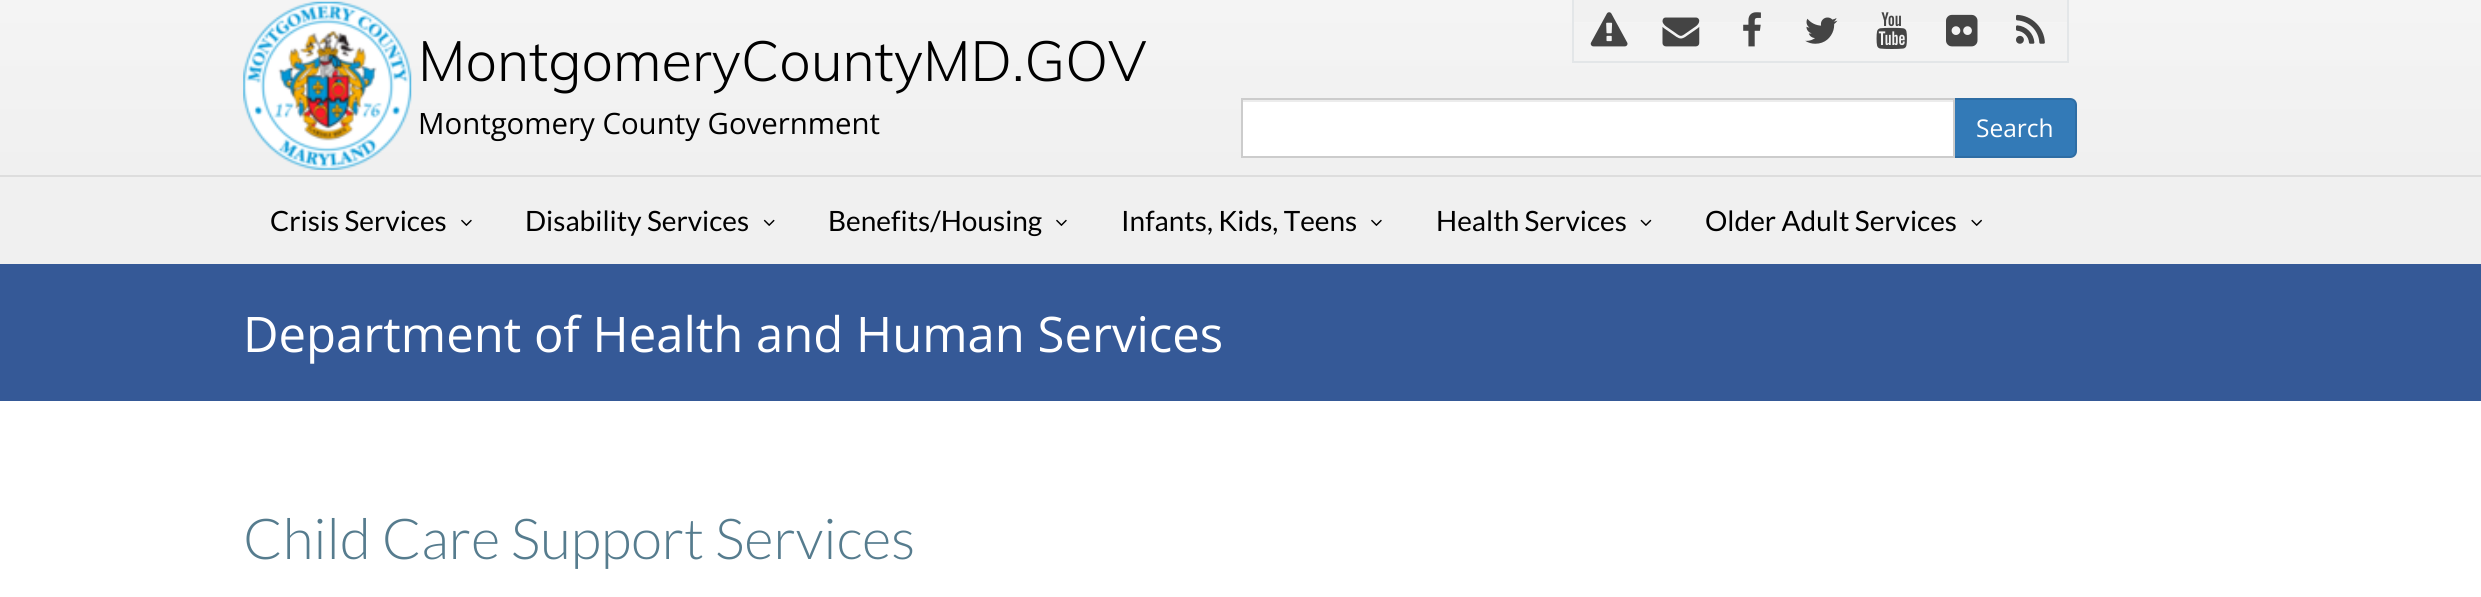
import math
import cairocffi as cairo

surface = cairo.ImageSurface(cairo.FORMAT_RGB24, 2481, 597)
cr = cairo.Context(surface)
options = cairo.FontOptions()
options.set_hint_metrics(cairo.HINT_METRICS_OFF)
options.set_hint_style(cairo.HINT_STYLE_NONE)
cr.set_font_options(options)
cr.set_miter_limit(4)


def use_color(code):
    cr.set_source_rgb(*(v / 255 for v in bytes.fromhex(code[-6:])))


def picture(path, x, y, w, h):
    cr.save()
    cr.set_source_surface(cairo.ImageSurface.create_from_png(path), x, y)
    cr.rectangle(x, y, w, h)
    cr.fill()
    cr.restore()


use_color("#ffffff")
cr.paint()
gradient = cairo.LinearGradient(1241, 175, 1241, 0)
gradient.add_color_stop_rgba(0, 0.941, 0.941, 0.941, 1)
gradient.add_color_stop_rgba(1, 0.957, 0.957, 0.957, 1)
cr.set_source(gradient)
cr.rectangle(0, 0, 2481, 175)
cr.fill()
picture("img1.png", 243, 1, 169, 169)
cr.select_font_face("Muli Light")
cr.set_font_size(56)
use_color("#000000")
cr.move_to(418, 81)
cr.show_text("MontgomeryCountyMD.GOV")
cr.select_font_face("Open Sans")
cr.set_font_size(29.4)
cr.move_to(418, 134)
cr.show_text("Montgomery County Government")
use_color("#f1f1f1")
cr.rectangle(1574, 0, 493, 22)
cr.fill()
use_color("#e3e6e8")
cr.rectangle(2067, 0, 2, 63)
cr.fill()
cr.rectangle(1572, 61, 497, 2)
cr.fill()
cr.rectangle(1572, 0, 2, 63)
cr.fill()
picture("img2.png", 1590, 12, 38, 35)
picture("img3.png", 1662, 17, 38, 30)
picture("img4.png", 1743, 12, 18, 35)
picture("img5.png", 1805, 17, 33, 27)
picture("img6.png", 1876, 12, 31, 37)
picture("img7.png", 1946, 14, 32, 33)
picture("img8.png", 2016, 14, 29, 30)
use_color("#ffffff")
cr.rectangle(1243, 102, 710, 54)
cr.fill()
use_color("#ececec")
cr.rectangle(1243, 100, 710, 2)
cr.fill()
use_color("#337ab7")
cr.new_path()
cr.move_to(1954, 99)
cr.line_to(2070, 99)
cr.curve_to(2073.5, 99, 2076, 101.5, 2076, 105)
cr.line_to(2076, 151)
cr.curve_to(2076, 154.5, 2073.5, 157, 2070, 157)
cr.line_to(1954, 157)
cr.close_path()
cr.fill_preserve()
use_color("#2e6da4")
cr.stroke()
cr.rectangle(1242, 99, 712, 58)
use_color("#cccccc")
cr.stroke()
cr.set_font_size(24.5)
use_color("#ffffff")
cr.move_to(1976, 137)
cr.show_text("Search")
use_color("#f0f0f0")
cr.rectangle(0, 177, 2481, 87)
cr.fill()
use_color("#dddddd")
cr.rectangle(0, 175, 2481, 2)
cr.fill()
cr.select_font_face("Lato")
cr.set_font_size(28)
use_color("#000000")
cr.move_to(270, 231)
cr.show_text("Crisis Services")
picture("img9.png", 461, 219, 11, 7)
cr.move_to(525, 231)
cr.show_text("Disability Services")
picture("img10.png", 763, 219, 12, 7)
cr.move_to(828, 231)
cr.show_text("Benefits/Housing")
picture("img9.png", 1056, 219, 11, 7)
cr.move_to(1121, 231)
cr.show_text("Infants, Kids, Teens")
picture("img9.png", 1371, 219, 11, 7)
cr.move_to(1436, 231)
cr.show_text("Health Services")
picture("img11.png", 1640, 219, 12, 7)
cr.move_to(1705, 231)
cr.show_text("Older Adult Services")
picture("img12.png", 1971, 219, 11, 7)
use_color("#355997")
cr.rectangle(0, 264, 2481, 137)
cr.fill()
cr.select_font_face("Open Sans")
cr.set_font_size(49)
use_color("#ffffff")
cr.move_to(243, 352)
cr.show_text("Department of Health and Human Services")
cr.select_font_face("Lato Light")
cr.set_font_size(56.4)
use_color("#567c8e")
cr.move_to(243, 559)
cr.show_text("Child Care Support Services")
surface.write_to_png("result.png")
